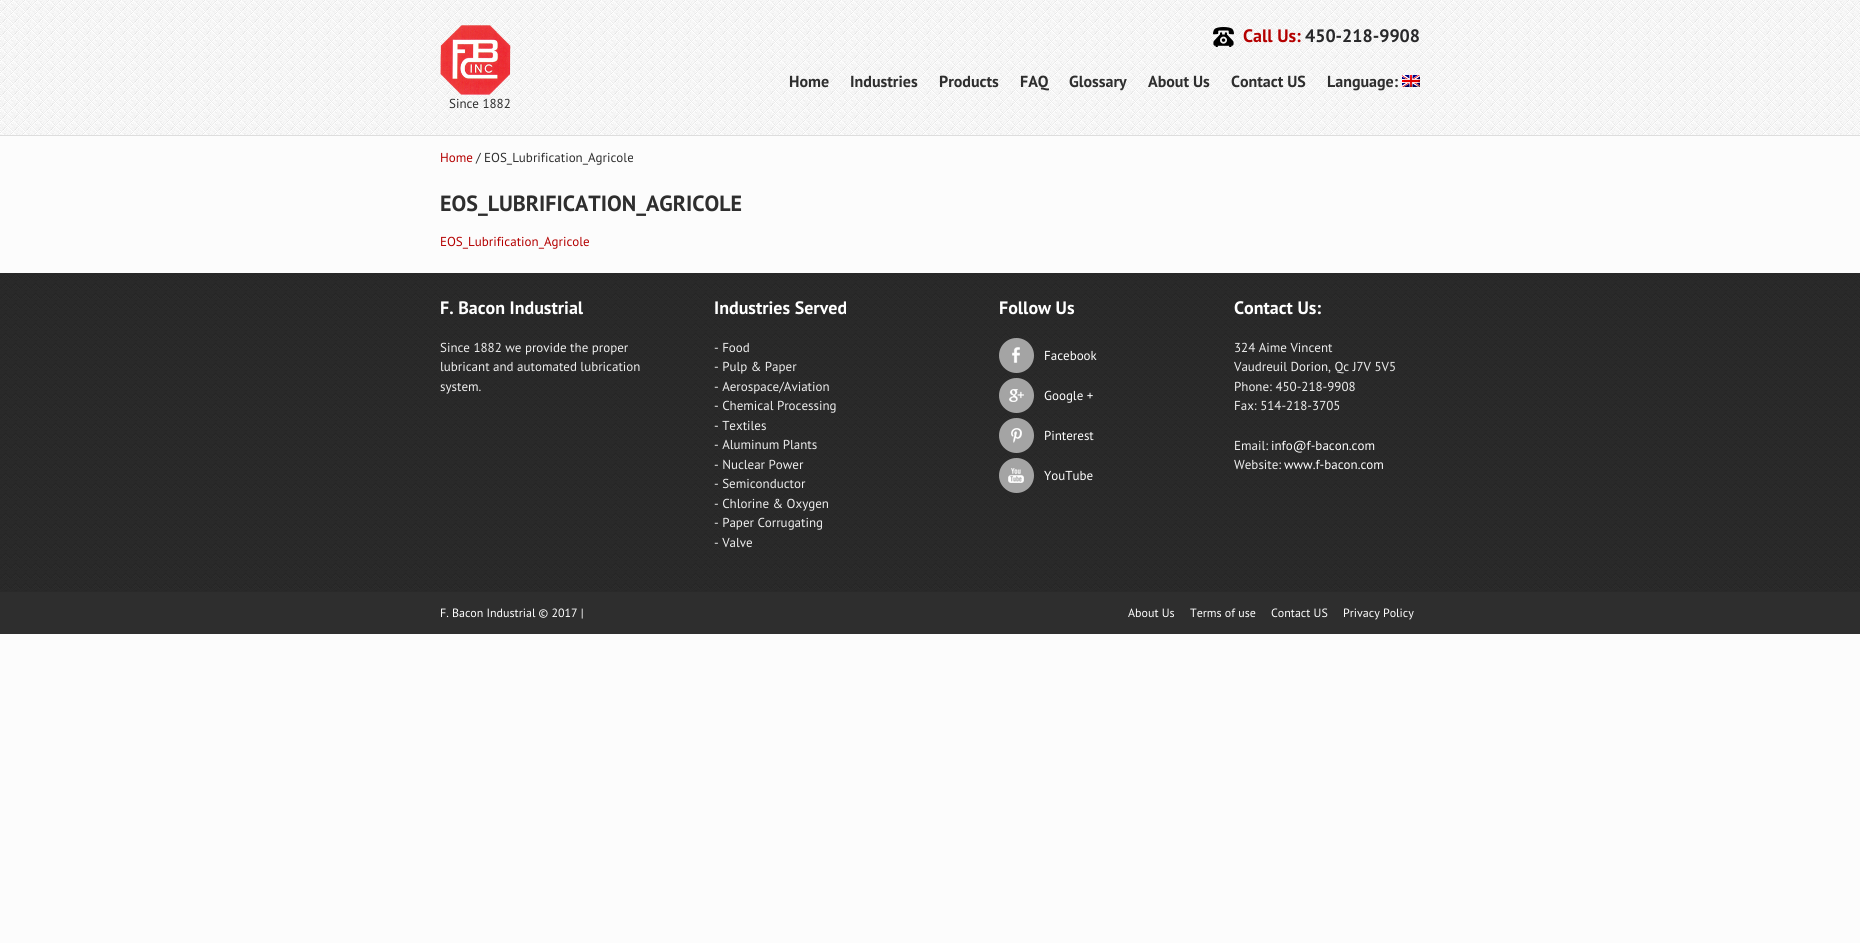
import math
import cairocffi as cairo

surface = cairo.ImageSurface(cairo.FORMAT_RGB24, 1860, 943)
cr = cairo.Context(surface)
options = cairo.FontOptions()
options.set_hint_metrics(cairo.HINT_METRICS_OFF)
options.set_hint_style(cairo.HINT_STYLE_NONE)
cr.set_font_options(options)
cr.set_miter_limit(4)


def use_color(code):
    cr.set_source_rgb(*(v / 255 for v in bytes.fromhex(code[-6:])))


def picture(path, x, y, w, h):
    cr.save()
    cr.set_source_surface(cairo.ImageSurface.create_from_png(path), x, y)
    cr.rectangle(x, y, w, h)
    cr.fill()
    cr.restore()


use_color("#fcfcfc")
cr.paint()
picture("img1.png", 0, 0, 1860, 135)
use_color("#dddddd")
cr.rectangle(0, 135, 1860, 1)
cr.fill()
picture("img2.png", 1213, 27, 21, 20)
cr.select_font_face("PT Sans", cairo.FONT_SLANT_NORMAL, cairo.FONT_WEIGHT_BOLD)
cr.set_font_size(18)
use_color("#b40000")
cr.move_to(1243, 42)
cr.show_text("Call Us:")
use_color("#28282a")
cr.move_to(1305, 42)
cr.show_text("450-218-9908")
cr.set_font_size(16)
use_color("#2e2e2e")
cr.move_to(789, 87)
cr.show_text("Home")
cr.move_to(850, 87)
cr.show_text("Industries")
cr.move_to(939, 87)
cr.show_text("Products")
cr.move_to(1020, 87)
cr.show_text("FAQ")
cr.move_to(1069, 87)
cr.show_text("Glossary")
cr.move_to(1148, 87)
cr.show_text("About Us")
cr.move_to(1231, 87)
cr.show_text("Contact US")
cr.move_to(1327, 87)
cr.show_text("Language:")
picture("img3.png", 1402, 75, 18, 12)
picture("img4.png", 440, 25, 71, 70)
cr.select_font_face("PT Sans")
cr.set_font_size(13)
cr.move_to(449, 108)
cr.show_text("Since 1882")
use_color("#b40000")
cr.move_to(440, 162)
cr.show_text("Home")
use_color("#2e2e2e")
cr.move_to(476, 162)
cr.show_text("/ EOS_Lubrification_Agricole")
cr.select_font_face("PT Sans", cairo.FONT_SLANT_NORMAL, cairo.FONT_WEIGHT_BOLD)
cr.set_font_size(22)
cr.move_to(440, 211)
cr.show_text("EOS_LUBRIFICATION_AGRICOLE")
cr.select_font_face("PT Sans")
cr.set_font_size(13)
use_color("#b40000")
cr.move_to(440, 246)
cr.show_text("EOS_Lubrification_Agricole")
picture("img5.png", 0, 273, 1860, 319)
cr.select_font_face("PT Sans", cairo.FONT_SLANT_NORMAL, cairo.FONT_WEIGHT_BOLD)
cr.set_font_size(18)
use_color("#ffffff")
cr.move_to(440, 314)
cr.show_text("F. Bacon Industrial")
cr.select_font_face("PT Sans")
cr.set_font_size(13)
use_color("#eeeeee")
cr.move_to(440, 352)
cr.show_text("Since 1882 we provide the proper")
cr.move_to(440, 371)
cr.show_text("lubricant and automated lubrication")
cr.move_to(440, 391)
cr.show_text("system.")
cr.select_font_face("PT Sans", cairo.FONT_SLANT_NORMAL, cairo.FONT_WEIGHT_BOLD)
cr.set_font_size(18)
use_color("#ffffff")
cr.move_to(714, 314)
cr.show_text("Industries Served")
cr.select_font_face("PT Sans")
cr.set_font_size(13)
use_color("#eeeeee")
cr.move_to(714, 352)
cr.show_text("- Food")
cr.move_to(714, 371)
cr.show_text("- Pulp & Paper")
cr.move_to(714, 391)
cr.show_text("- Aerospace/Aviation")
cr.move_to(714, 410)
cr.show_text("- Chemical Processing")
cr.move_to(714, 430)
cr.show_text("- Textiles")
cr.move_to(714, 449)
cr.show_text("- Aluminum Plants")
cr.move_to(714, 469)
cr.show_text("- Nuclear Power")
cr.move_to(714, 488)
cr.show_text("- Semiconductor")
cr.move_to(714, 508)
cr.show_text("- Chlorine & Oxygen")
cr.move_to(714, 527)
cr.show_text("- Paper Corrugating")
cr.move_to(714, 547)
cr.show_text("- Valve")
cr.select_font_face("PT Sans", cairo.FONT_SLANT_NORMAL, cairo.FONT_WEIGHT_BOLD)
cr.set_font_size(18)
use_color("#ffffff")
cr.move_to(999, 314)
cr.show_text("Follow Us")
use_color("#a4a4a4")
cr.new_path()
cr.arc(1016.5, 355.5, 17.5, 0, 2 * math.pi)
cr.fill()
picture("img6.png", 1012, 347, 8, 16)
cr.select_font_face("PT Sans")
cr.set_font_size(13)
use_color("#ffffff")
cr.move_to(1044, 360)
cr.show_text("Facebook")
use_color("#a4a4a4")
cr.new_path()
cr.arc(1016.5, 395.5, 17.5, 0, 2 * math.pi)
cr.fill()
picture("img7.png", 1009, 389, 15, 13)
use_color("#ffffff")
cr.move_to(1044, 400)
cr.show_text("Google +")
use_color("#a4a4a4")
cr.new_path()
cr.arc(1016.5, 435.5, 17.5, 0, 2 * math.pi)
cr.fill()
picture("img8.png", 1011, 428, 11, 15)
use_color("#ffffff")
cr.move_to(1044, 440)
cr.show_text("Pinterest")
use_color("#a4a4a4")
cr.new_path()
cr.arc(1016.5, 475.5, 17.5, 0, 2 * math.pi)
cr.fill()
picture("img9.png", 1008, 468, 16, 15)
use_color("#ffffff")
cr.move_to(1044, 480)
cr.show_text("YouTube")
cr.select_font_face("PT Sans", cairo.FONT_SLANT_NORMAL, cairo.FONT_WEIGHT_BOLD)
cr.set_font_size(18)
cr.move_to(1234, 314)
cr.show_text("Contact Us:")
cr.select_font_face("PT Sans")
cr.set_font_size(13)
use_color("#eeeeee")
cr.move_to(1234, 352)
cr.show_text("324 Aime Vincent")
cr.move_to(1234, 371)
cr.show_text("Vaudreuil Dorion, Qc J7V 5V5")
cr.move_to(1234, 391)
cr.show_text("Phone: 450-218-9908")
cr.move_to(1234, 410)
cr.show_text("Fax: 514-218-3705")
cr.move_to(1234, 450)
cr.show_text("Email:")
use_color("#ffffff")
cr.move_to(1271, 450)
cr.show_text("info@f-bacon.com")
use_color("#eeeeee")
cr.move_to(1234, 469)
cr.show_text("Website:")
use_color("#ffffff")
cr.move_to(1284, 469)
cr.show_text("www.f-bacon.com")
use_color("#2e2e2e")
cr.rectangle(0, 592, 1860, 42)
cr.fill()
cr.set_font_size(12)
use_color("#ffffff")
cr.move_to(440, 617)
cr.show_text("F. Bacon Industrial © 2017 |")
cr.move_to(1128, 617)
cr.show_text("About Us")
cr.move_to(1190, 617)
cr.show_text("Terms of use")
cr.move_to(1271, 617)
cr.show_text("Contact US")
cr.move_to(1343, 617)
cr.show_text("Privacy Policy")
surface.write_to_png("result.png")
